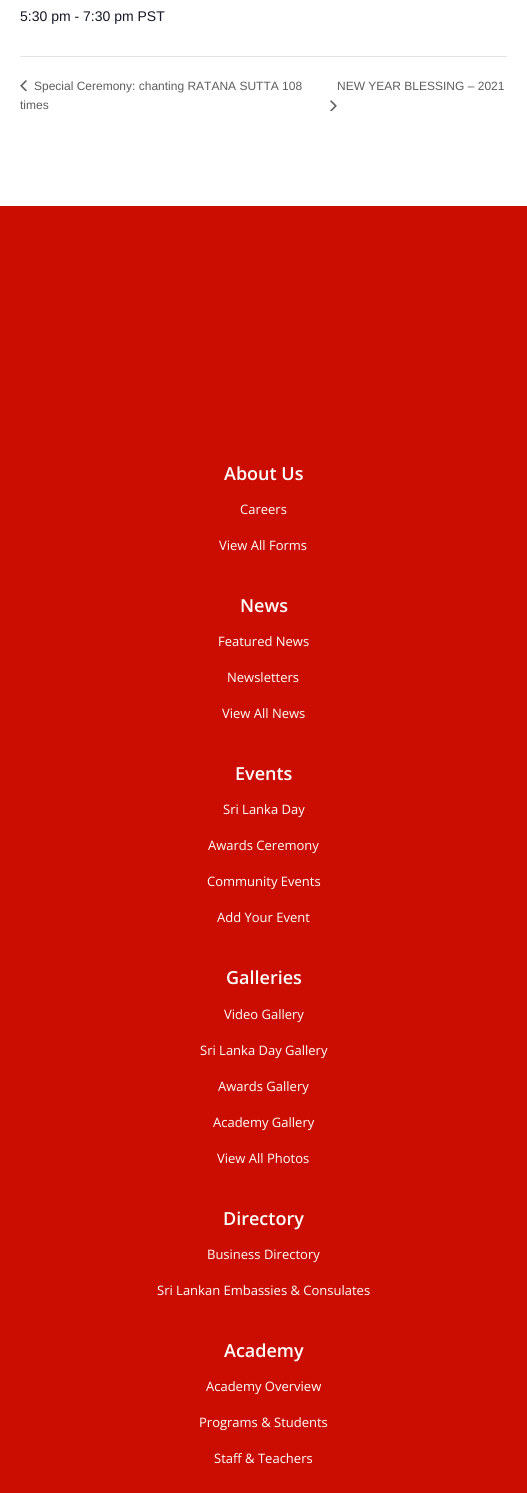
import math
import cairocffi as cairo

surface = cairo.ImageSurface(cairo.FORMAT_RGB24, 527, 1493)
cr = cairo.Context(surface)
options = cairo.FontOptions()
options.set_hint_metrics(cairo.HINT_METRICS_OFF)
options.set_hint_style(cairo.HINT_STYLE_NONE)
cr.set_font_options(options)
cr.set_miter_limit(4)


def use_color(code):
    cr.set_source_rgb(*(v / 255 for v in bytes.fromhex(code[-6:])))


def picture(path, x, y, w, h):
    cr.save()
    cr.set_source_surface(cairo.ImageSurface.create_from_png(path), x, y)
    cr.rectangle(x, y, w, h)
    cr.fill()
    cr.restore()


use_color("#ffffff")
cr.paint()
cr.select_font_face("Liberation Sans")
cr.set_font_size(14)
use_color("#141827")
cr.move_to(20, 21)
cr.show_text("5:30 pm - 7:30 pm PST")
use_color("#e4e4e4")
cr.rectangle(20, 56, 487, 1)
cr.fill()
picture("img1.png", 20, 80, 7, 11)
cr.set_font_size(12)
use_color("#5d5d5d")
cr.move_to(34, 90)
cr.show_text("Special Ceremony: chanting RATANA SUTTA 108")
cr.move_to(20, 109)
cr.show_text("times")
cr.move_to(337, 90)
cr.show_text("NEW YEAR BLESSING – 2021")
picture("img2.png", 330, 100, 7, 11)
use_color("#cb0d01")
cr.rectangle(0, 206, 527, 1287)
cr.fill()
cr.select_font_face("Open Sans SemiBold")
cr.set_font_size(18)
use_color("#ffffff")
cr.move_to(224, 480)
cr.show_text("About Us")
cr.select_font_face("Open Sans")
cr.set_font_size(13)
cr.move_to(240, 514)
cr.show_text("Careers")
cr.move_to(219, 550)
cr.show_text("View All Forms")
cr.select_font_face("Open Sans SemiBold")
cr.set_font_size(18)
cr.move_to(240, 612)
cr.show_text("News")
cr.select_font_face("Open Sans")
cr.set_font_size(13)
cr.move_to(218, 646)
cr.show_text("Featured News")
cr.move_to(227, 682)
cr.show_text("Newsletters")
cr.move_to(222, 718)
cr.show_text("View All News")
cr.select_font_face("Open Sans SemiBold")
cr.set_font_size(18)
cr.move_to(235, 780)
cr.show_text("Events")
cr.select_font_face("Open Sans")
cr.set_font_size(13)
cr.move_to(223, 814)
cr.show_text("Sri Lanka Day")
cr.move_to(208, 850)
cr.show_text("Awards Ceremony")
cr.move_to(207, 886)
cr.show_text("Community Events")
cr.move_to(217, 922)
cr.show_text("Add Your Event")
cr.select_font_face("Open Sans SemiBold")
cr.set_font_size(18)
cr.move_to(226, 984)
cr.show_text("Galleries")
cr.select_font_face("Open Sans")
cr.set_font_size(13)
cr.move_to(224, 1019)
cr.show_text("Video Gallery")
cr.move_to(200, 1055)
cr.show_text("Sri Lanka Day Gallery")
cr.move_to(218, 1091)
cr.show_text("Awards Gallery")
cr.move_to(213, 1127)
cr.show_text("Academy Gallery")
cr.move_to(217, 1163)
cr.show_text("View All Photos")
cr.select_font_face("Open Sans SemiBold")
cr.set_font_size(18)
cr.move_to(223, 1225)
cr.show_text("Directory")
cr.select_font_face("Open Sans")
cr.set_font_size(13)
cr.move_to(207, 1259)
cr.show_text("Business Directory")
cr.move_to(157, 1295)
cr.show_text("Sri Lankan Embassies & Consulates")
cr.select_font_face("Open Sans SemiBold")
cr.set_font_size(18)
cr.move_to(224, 1357)
cr.show_text("Academy")
cr.select_font_face("Open Sans")
cr.set_font_size(13)
cr.move_to(206, 1391)
cr.show_text("Academy Overview")
cr.move_to(199, 1427)
cr.show_text("Programs & Students")
cr.move_to(214, 1463)
cr.show_text("Staff & Teachers")
surface.write_to_png("result.png")
